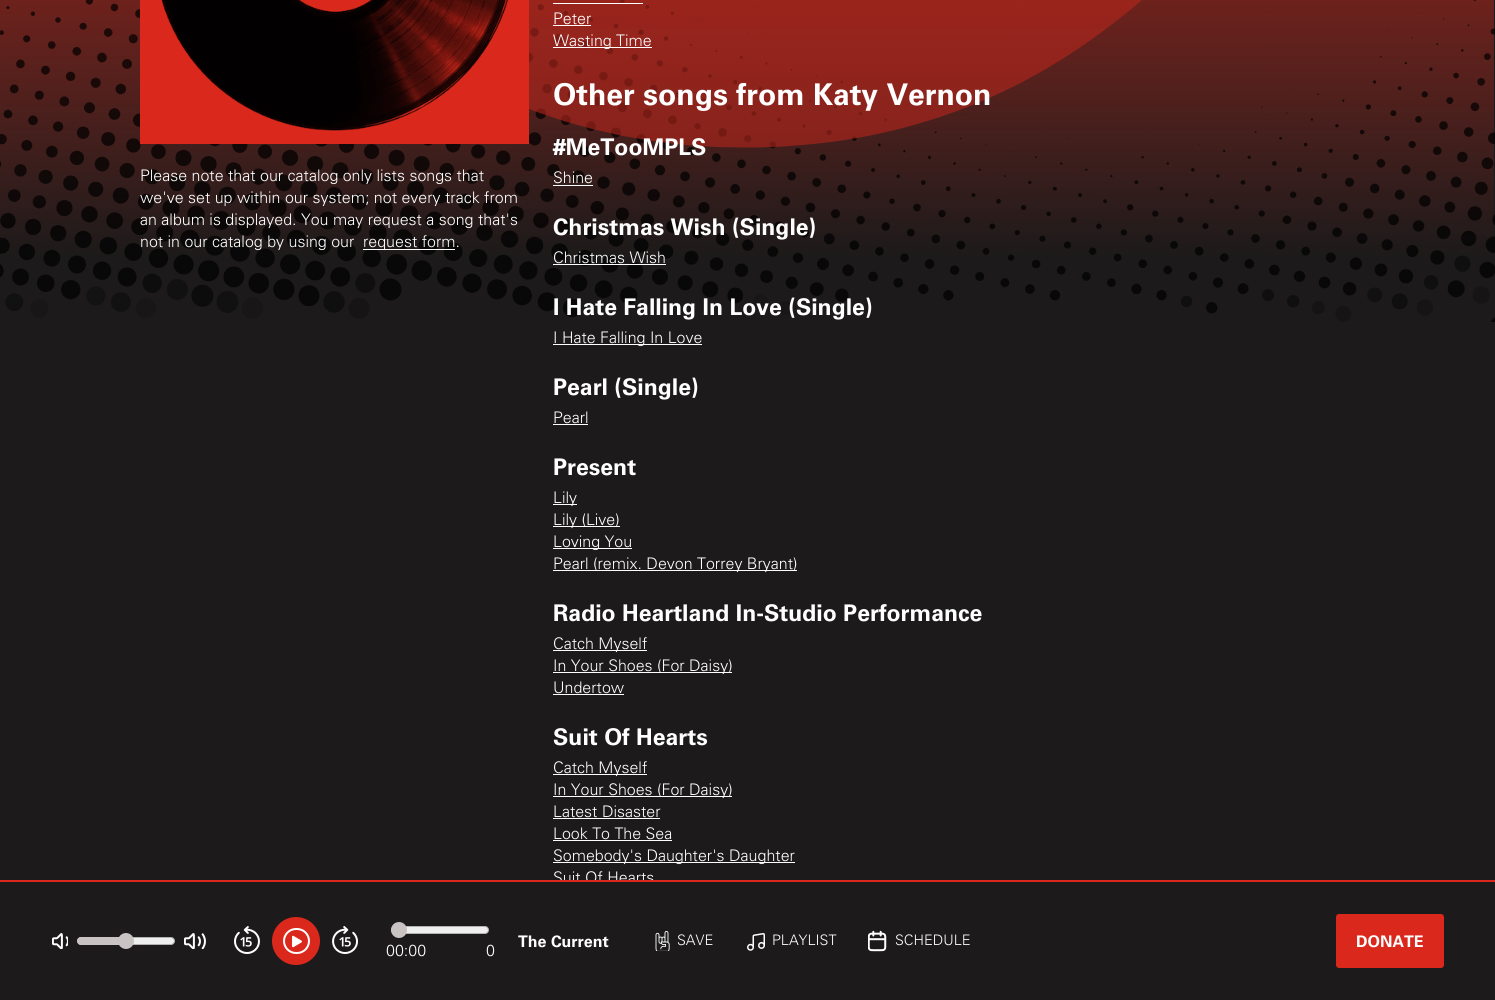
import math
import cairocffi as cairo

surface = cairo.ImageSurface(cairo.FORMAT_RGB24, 1495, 1000)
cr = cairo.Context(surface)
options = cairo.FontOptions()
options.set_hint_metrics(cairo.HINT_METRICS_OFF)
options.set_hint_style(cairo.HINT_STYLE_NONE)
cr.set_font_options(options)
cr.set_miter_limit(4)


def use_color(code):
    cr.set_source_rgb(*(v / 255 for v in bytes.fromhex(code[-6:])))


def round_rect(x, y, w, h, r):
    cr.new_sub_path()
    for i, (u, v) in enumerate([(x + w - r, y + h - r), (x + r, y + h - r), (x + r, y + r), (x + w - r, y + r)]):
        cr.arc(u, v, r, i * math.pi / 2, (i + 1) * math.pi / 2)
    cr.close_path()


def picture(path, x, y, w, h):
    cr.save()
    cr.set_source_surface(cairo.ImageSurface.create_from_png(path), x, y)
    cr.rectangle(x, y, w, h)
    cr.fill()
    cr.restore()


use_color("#1c1a1a")
cr.paint()
picture("img1.png", 0, 0, 1495, 322)
picture("img2.png", 140, 0, 389, 144)
cr.select_font_face("Univers Light")
cr.set_font_size(16)
use_color("#ffffff")
cr.move_to(140, 181)
cr.show_text("Please note that our catalog only lists songs that")
cr.move_to(140, 203)
cr.show_text("we've set up within our system; not every track from")
cr.move_to(140, 225)
cr.show_text("an album is displayed. You may request a song that's")
cr.move_to(140, 247)
cr.show_text("not in our catalog by using our")
cr.rectangle(363, 249, 92, 1)
cr.fill()
cr.move_to(363, 247)
cr.show_text("request form.")
cr.rectangle(553, 3, 90, 1)
cr.fill()
cr.move_to(553, 24)
cr.show_text("Peter")
cr.rectangle(553, 25, 38, 1)
cr.fill()
cr.rectangle(553, 47, 99, 1)
cr.fill()
cr.move_to(553, 46)
cr.show_text("Wasting Time")
cr.select_font_face("Univers", cairo.FONT_SLANT_NORMAL, cairo.FONT_WEIGHT_BOLD)
cr.set_font_size(30)
cr.move_to(553, 105)
cr.show_text("Other songs from Katy Vernon")
cr.set_font_size(23)
cr.move_to(553, 155)
cr.show_text("#MeTooMPLS")
cr.select_font_face("Univers Light")
cr.set_font_size(16)
cr.move_to(553, 183)
cr.show_text("Shine")
cr.rectangle(553, 185, 40, 1)
cr.fill()
cr.select_font_face("Univers", cairo.FONT_SLANT_NORMAL, cairo.FONT_WEIGHT_BOLD)
cr.set_font_size(23)
cr.move_to(553, 235)
cr.show_text("Christmas Wish (Single)")
cr.select_font_face("Univers Light")
cr.set_font_size(16)
cr.move_to(553, 263)
cr.show_text("Christmas Wish")
cr.rectangle(553, 264, 113, 1)
cr.fill()
cr.select_font_face("Univers", cairo.FONT_SLANT_NORMAL, cairo.FONT_WEIGHT_BOLD)
cr.set_font_size(23)
cr.move_to(553, 315)
cr.show_text("I Hate Falling In Love (Single)")
cr.rectangle(553, 344, 149, 1)
cr.fill()
cr.select_font_face("Univers Light")
cr.set_font_size(16)
cr.move_to(553, 343)
cr.show_text("I Hate Falling In Love")
cr.select_font_face("Univers", cairo.FONT_SLANT_NORMAL, cairo.FONT_WEIGHT_BOLD)
cr.set_font_size(23)
cr.move_to(553, 395)
cr.show_text("Pearl (Single)")
cr.select_font_face("Univers Light")
cr.set_font_size(16)
cr.move_to(553, 423)
cr.show_text("Pearl")
cr.rectangle(553, 424, 35, 1)
cr.fill()
cr.select_font_face("Univers", cairo.FONT_SLANT_NORMAL, cairo.FONT_WEIGHT_BOLD)
cr.set_font_size(23)
cr.move_to(553, 475)
cr.show_text("Present")
cr.rectangle(553, 504, 24, 1)
cr.fill()
cr.select_font_face("Univers Light")
cr.set_font_size(16)
cr.move_to(553, 503)
cr.show_text("Lily")
cr.rectangle(553, 526, 67, 1)
cr.fill()
cr.move_to(553, 525)
cr.show_text("Lily (Live)")
cr.rectangle(553, 548, 79, 1)
cr.fill()
cr.move_to(553, 547)
cr.show_text("Loving You")
cr.rectangle(553, 570, 244, 1)
cr.fill()
cr.move_to(553, 569)
cr.show_text("Pearl (remix. Devon Torrey Bryant)")
cr.select_font_face("Univers", cairo.FONT_SLANT_NORMAL, cairo.FONT_WEIGHT_BOLD)
cr.set_font_size(23)
cr.move_to(553, 621)
cr.show_text("Radio Heartland In-Studio Performance")
cr.rectangle(553, 650, 94, 1)
cr.fill()
cr.select_font_face("Univers Light")
cr.set_font_size(16)
cr.move_to(553, 649)
cr.show_text("Catch Myself")
cr.rectangle(553, 672, 179, 1)
cr.fill()
cr.move_to(553, 671)
cr.show_text("In Your Shoes (For Daisy)")
cr.move_to(553, 693)
cr.show_text("Undertow")
cr.rectangle(553, 694, 71, 1)
cr.fill()
cr.select_font_face("Univers", cairo.FONT_SLANT_NORMAL, cairo.FONT_WEIGHT_BOLD)
cr.set_font_size(23)
cr.move_to(553, 745)
cr.show_text("Suit Of Hearts")
cr.rectangle(553, 774, 94, 1)
cr.fill()
cr.select_font_face("Univers Light")
cr.set_font_size(16)
cr.move_to(553, 773)
cr.show_text("Catch Myself")
cr.rectangle(553, 796, 179, 1)
cr.fill()
cr.move_to(553, 795)
cr.show_text("In Your Shoes (For Daisy)")
cr.move_to(553, 817)
cr.show_text("Latest Disaster")
cr.rectangle(553, 818, 107, 1)
cr.fill()
cr.move_to(553, 839)
cr.show_text("Look To The Sea")
cr.rectangle(553, 840, 119, 1)
cr.fill()
cr.rectangle(553, 862, 242, 1)
cr.fill()
cr.move_to(553, 861)
cr.show_text("Somebody's Daughter's Daughter")
cr.move_to(553, 883)
cr.show_text("Suit Of Hearts")
use_color("#1c1a1a")
cr.rectangle(554, 882, 99, 2)
cr.fill()
use_color("#da291c")
cr.rectangle(0, 880, 1495, 2)
cr.fill()
picture("img3.png", 52, 933, 16, 16)
use_color("#efefef")
round_rect(77.5, 937.5, 97, 7, 3.5)
cr.fill_preserve()
use_color("#b2b2b2")
cr.set_line_width(1)
cr.stroke()
use_color("#c9c3c3")
cr.new_path()
cr.move_to(81, 937)
cr.line_to(126, 937)
cr.line_to(126, 945)
cr.line_to(81, 945)
cr.curve_to(79, 945, 77, 943, 77, 941)
cr.curve_to(77, 939, 79, 937, 81, 937)
cr.close_path()
cr.fill()
cr.arc(126, 941, 8, 0, 2 * math.pi)
cr.fill()
picture("img4.png", 184, 933, 22, 16)
picture("img5.png", 234, 926, 26, 28)
use_color("#da291c")
cr.arc(296, 941, 24, 0, 2 * math.pi)
cr.fill()
picture("img6.png", 292, 935, 10, 13)
round_rect(284, 929, 25, 24, 12)
use_color("#ffffff")
cr.set_line_width(2)
cr.stroke()
picture("img7.png", 332, 926, 26, 28)
cr.select_font_face("Univers", cairo.FONT_SLANT_NORMAL, cairo.FONT_WEIGHT_BOLD)
cr.move_to(518, 947)
cr.show_text("The Current")
use_color("#efefef")
round_rect(391.5, 926.5, 97, 7, 3.5)
cr.fill_preserve()
use_color("#b2b2b2")
cr.set_line_width(1)
cr.stroke()
use_color("#c9c3c3")
cr.arc(399, 930, 8, 0, 2 * math.pi)
cr.fill()
cr.select_font_face("Univers Light")
use_color("#ffffff")
cr.move_to(386, 956)
cr.show_text("00:00")
cr.move_to(486, 956)
cr.show_text("0")
picture("img8.png", 655, 931, 15, 20)
cr.set_font_size(14.5)
cr.move_to(677, 945)
cr.show_text("SAVE")
picture("img9.png", 747, 933, 18, 18)
cr.move_to(772, 945)
cr.show_text("PLAYLIST")
picture("img10.png", 868, 930, 19, 22)
cr.move_to(895, 945)
cr.show_text("SCHEDULE")
use_color("#da291c")
round_rect(1336, 914, 108, 54, 3)
cr.fill()
cr.select_font_face("Univers", cairo.FONT_SLANT_NORMAL, cairo.FONT_WEIGHT_BOLD)
cr.set_font_size(16)
use_color("#ffffff")
cr.move_to(1356, 947)
cr.show_text("DONATE")
surface.write_to_png("result.png")
